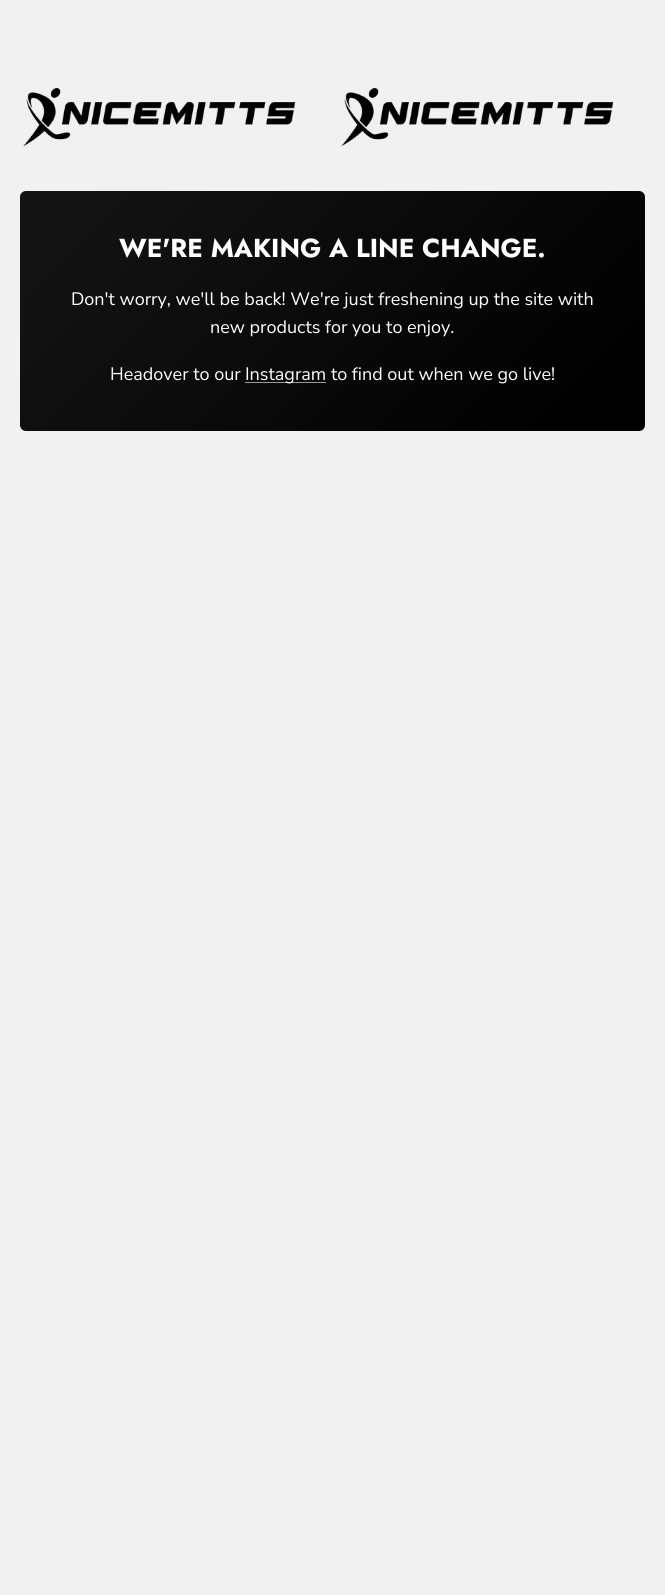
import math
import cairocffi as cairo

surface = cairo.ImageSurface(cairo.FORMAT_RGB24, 665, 1595)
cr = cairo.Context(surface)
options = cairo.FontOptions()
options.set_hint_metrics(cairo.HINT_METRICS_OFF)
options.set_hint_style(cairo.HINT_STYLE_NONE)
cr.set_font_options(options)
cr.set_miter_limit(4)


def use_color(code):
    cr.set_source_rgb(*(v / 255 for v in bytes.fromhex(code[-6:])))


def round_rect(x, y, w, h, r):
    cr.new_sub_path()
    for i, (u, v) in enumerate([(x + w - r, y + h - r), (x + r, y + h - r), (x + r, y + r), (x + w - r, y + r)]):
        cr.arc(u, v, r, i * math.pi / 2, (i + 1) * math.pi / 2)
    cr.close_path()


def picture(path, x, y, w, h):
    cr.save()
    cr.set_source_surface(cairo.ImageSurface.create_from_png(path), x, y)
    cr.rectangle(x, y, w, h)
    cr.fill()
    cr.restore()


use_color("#f1f1f1")
cr.paint()
picture("img1.png", 23, 87, 273, 60)
picture("img2.png", 341, 87, 273, 60)
gradient = cairo.LinearGradient(116, 95, 549, 527)
gradient.add_color_stop_rgba(0.07, 0.078, 0.078, 0.078, 1)
gradient.add_color_stop_rgba(0.92, 0, 0, 0, 1)
cr.set_source(gradient)
round_rect(20, 191, 625, 240, 6)
cr.fill()
cr.select_font_face("Jost", cairo.FONT_SLANT_NORMAL, cairo.FONT_WEIGHT_BOLD)
cr.set_font_size(26)
use_color("#ffffff")
cr.move_to(119, 257)
cr.show_text("WE'RE MAKING A LINE CHANGE.")
cr.select_font_face("Nunito Sans")
cr.set_font_size(18)
cr.move_to(71, 305)
cr.show_text("Don't worry, we'll be back! We're just freshening up the site with")
cr.move_to(210, 333)
cr.show_text("new products for you to enjoy.")
cr.move_to(110, 380)
cr.show_text("Headover to our")
use_color("#9d9d9d")
cr.rectangle(245, 382, 81, 1)
cr.fill()
use_color("#ffffff")
cr.move_to(245, 380)
cr.show_text("Instagram to find out when we go live!")
surface.write_to_png("result.png")
